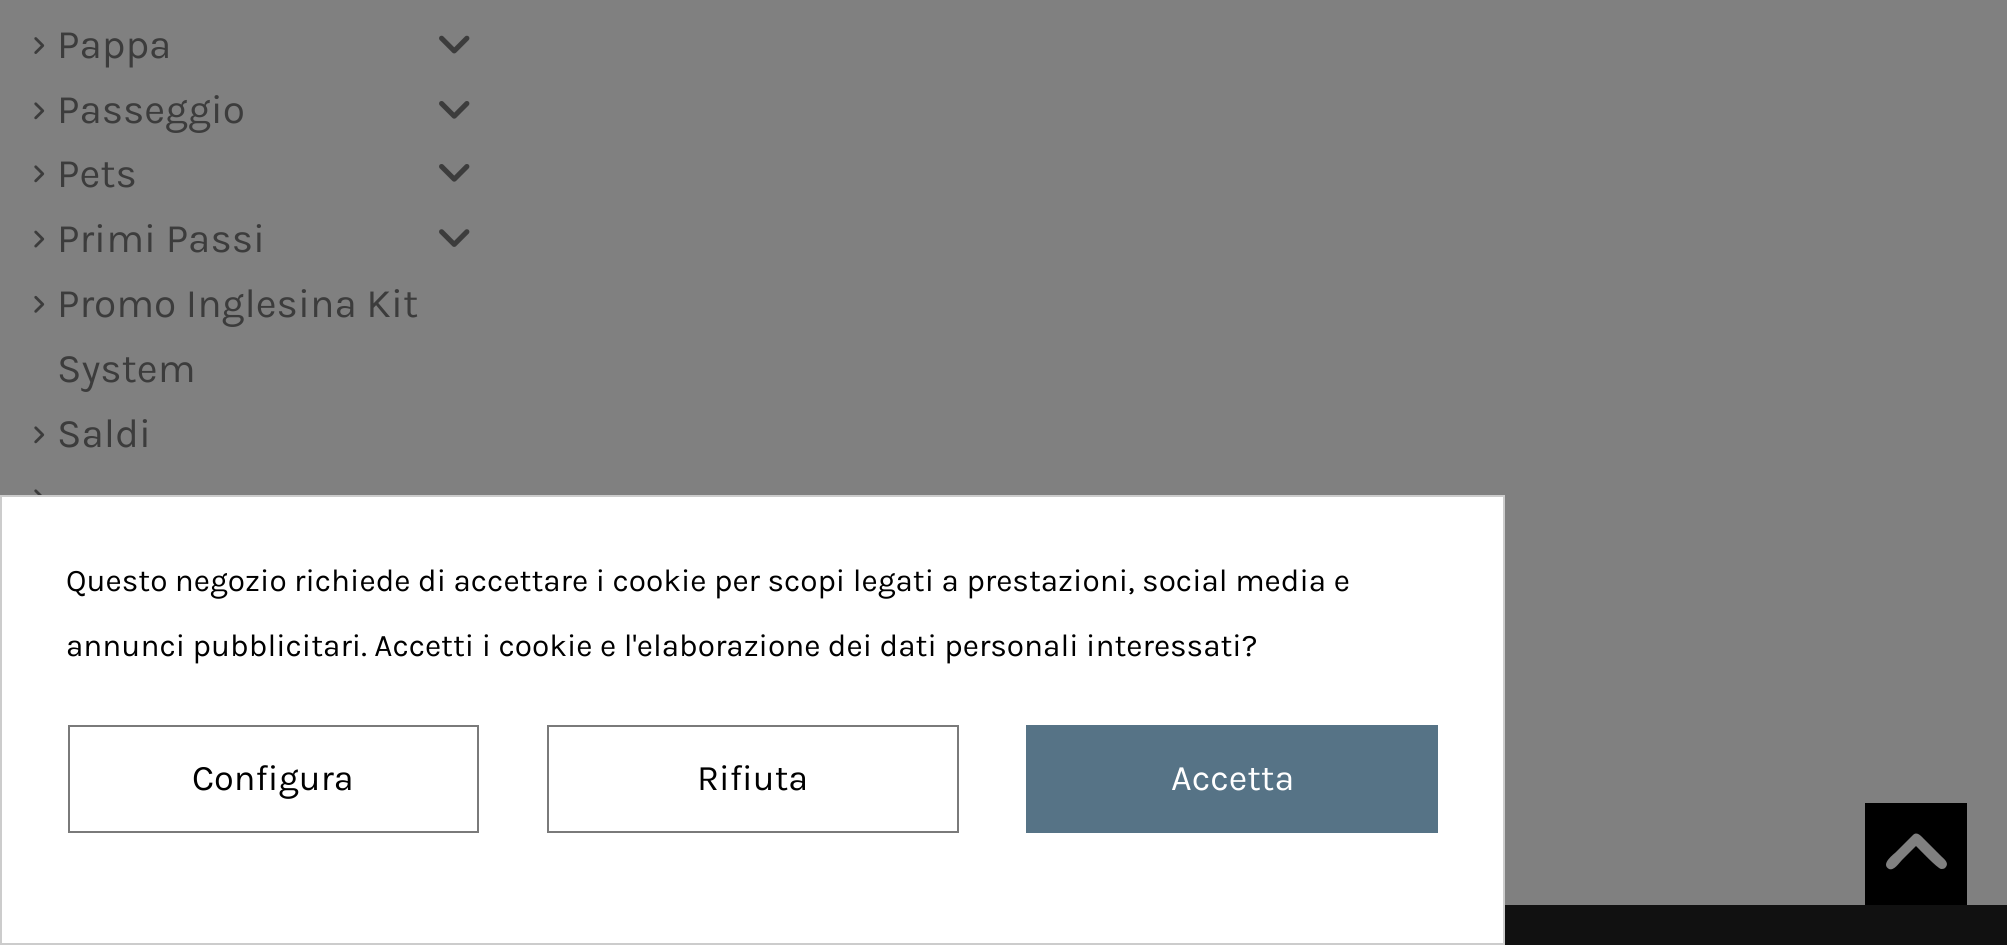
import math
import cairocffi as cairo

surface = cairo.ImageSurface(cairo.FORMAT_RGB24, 2007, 945)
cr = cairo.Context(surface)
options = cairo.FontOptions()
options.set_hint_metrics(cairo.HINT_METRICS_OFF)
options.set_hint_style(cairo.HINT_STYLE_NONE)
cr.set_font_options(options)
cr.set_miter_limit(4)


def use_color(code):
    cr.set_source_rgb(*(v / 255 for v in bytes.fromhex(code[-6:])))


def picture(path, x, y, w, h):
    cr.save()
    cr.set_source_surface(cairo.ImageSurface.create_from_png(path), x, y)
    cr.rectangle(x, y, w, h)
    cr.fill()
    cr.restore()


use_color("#808080")
cr.paint()
picture("img1.png", 34, 37, 11, 17)
cr.select_font_face("Karla")
cr.set_font_size(40.5)
use_color("#3c3c3c")
cr.move_to(57, 58)
cr.show_text("Pappa")
picture("img2.png", 439, 35, 31, 19)
picture("img3.png", 34, 102, 11, 18)
cr.move_to(57, 123)
cr.show_text("Passeggio")
picture("img4.png", 439, 101, 31, 18)
picture("img3.png", 34, 165, 11, 18)
cr.move_to(57, 187)
cr.show_text("Pets")
picture("img4.png", 439, 164, 31, 18)
picture("img5.png", 34, 230, 11, 18)
cr.move_to(57, 252)
cr.show_text("Primi Passi")
picture("img6.png", 439, 229, 31, 18)
picture("img7.png", 34, 295, 11, 18)
cr.move_to(57, 317)
cr.show_text("Promo Inglesina Kit")
cr.move_to(57, 382)
cr.show_text("System")
picture("img3.png", 34, 426, 11, 18)
cr.move_to(57, 447)
cr.show_text("Saldi")
picture("img8.png", 34, 489, 8, 6)
use_color("#111111")
cr.rectangle(1505, 905, 502, 40)
cr.fill()
use_color("#ffffff")
cr.rectangle(1, 496, 1503, 448)
cr.fill_preserve()
use_color("#cccccc")
cr.stroke()
cr.set_font_size(31.5)
use_color("#000000")
cr.move_to(66, 591)
cr.show_text("Questo negozio richiede di accettare i cookie per scopi legati a prestazioni, social media e")
cr.move_to(66, 656)
cr.show_text("annunci pubblicitari. Accetti i cookie e l'elaborazione dei dati personali interessati?")
cr.rectangle(69, 726, 409, 106)
use_color("#7a7a7a")
cr.stroke()
cr.set_font_size(36)
use_color("#000000")
cr.move_to(192, 790)
cr.show_text("Configura")
cr.rectangle(548, 726, 410, 106)
use_color("#7a7a7a")
cr.stroke()
use_color("#000000")
cr.move_to(697, 790)
cr.show_text("Rifiuta")
use_color("#567386")
cr.rectangle(1026, 725, 412, 108)
cr.fill()
use_color("#ffffff")
cr.move_to(1171, 790)
cr.show_text("Accetta")
use_color("#000000")
cr.rectangle(1865, 803, 102, 102)
cr.fill()
use_color("#808080")
cr.new_path()
cr.move_to(1913, 835)
cr.curve_to(1917, 831, 1921, 836, 1924, 839)
cr.line_to(1941, 856)
cr.curve_to(1944, 859, 1950, 863, 1945, 868)
cr.curve_to(1944, 869, 1942, 869, 1941, 869)
cr.curve_to(1937, 868, 1920, 850, 1916, 846)
cr.line_to(1902, 860)
cr.curve_to(1899, 863, 1894, 871, 1889, 869)
cr.curve_to(1880, 864, 1894, 854, 1896, 852)
cr.close_path()
cr.fill()
surface.write_to_png("result.png")
